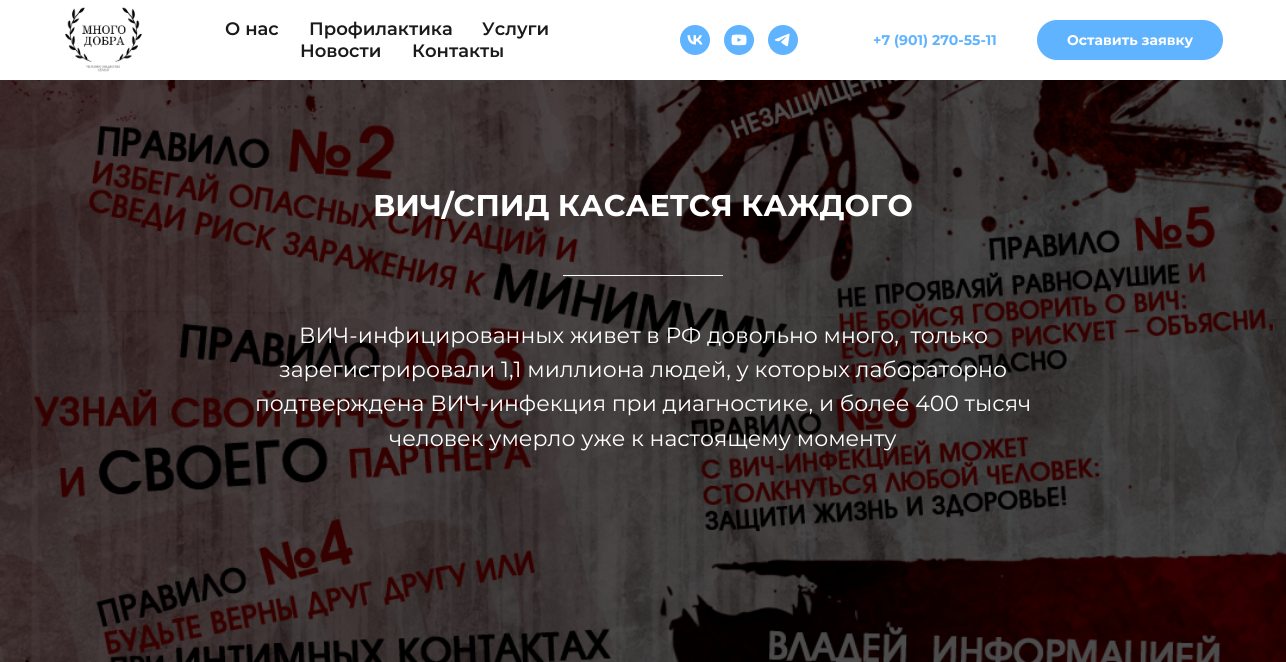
import math
import cairocffi as cairo

surface = cairo.ImageSurface(cairo.FORMAT_RGB24, 1286, 662)
cr = cairo.Context(surface)
options = cairo.FontOptions()
options.set_hint_metrics(cairo.HINT_METRICS_OFF)
options.set_hint_style(cairo.HINT_STYLE_NONE)
cr.set_font_options(options)
cr.set_miter_limit(4)


def use_color(code):
    cr.set_source_rgb(*(v / 255 for v in bytes.fromhex(code[-6:])))


def round_rect(x, y, w, h, r):
    cr.new_sub_path()
    for i, (u, v) in enumerate([(x + w - r, y + h - r), (x + r, y + h - r), (x + r, y + r), (x + w - r, y + r)]):
        cr.arc(u, v, r, i * math.pi / 2, (i + 1) * math.pi / 2)
    cr.close_path()


def picture(path, x, y, w, h):
    cr.save()
    cr.set_source_surface(cairo.ImageSurface.create_from_png(path), x, y)
    cr.rectangle(x, y, w, h)
    cr.fill()
    cr.restore()


use_color("#ffffff")
cr.paint()
picture("img1.png", 65, 7, 77, 65)
cr.select_font_face("Montserrat SemiBold")
cr.set_font_size(18)
use_color("#1a1a1a")
cr.move_to(225, 35)
cr.show_text("О нас")
cr.move_to(309, 35)
cr.show_text("Профилактика")
cr.move_to(482, 35)
cr.show_text("Услуги")
cr.move_to(300, 57)
cr.show_text("Новости")
cr.move_to(412, 57)
cr.show_text("Контакты")
picture("img2.png", 680, 25, 30, 30)
picture("img3.png", 724, 25, 30, 30)
picture("img4.png", 768, 25, 30, 30)
cr.select_font_face("Montserrat", cairo.FONT_SLANT_NORMAL, cairo.FONT_WEIGHT_BOLD)
cr.set_font_size(14)
use_color("#60b3ff")
cr.move_to(873, 45)
cr.show_text("+7 (901) 270-55-11")
round_rect(1037, 20, 186, 40, 20)
cr.fill()
use_color("#ffffff")
cr.move_to(1067, 45)
cr.show_text("Оставить заявку")
picture("img5.png", 0, 80, 1286, 582)
cr.set_font_size(30)
cr.move_to(373, 216)
cr.show_text("ВИЧ/СПИД КАСАЕТСЯ КАЖДОГО")
cr.rectangle(563, 275, 160, 1)
cr.fill()
cr.select_font_face("Montserrat")
cr.set_font_size(22)
cr.move_to(299, 343)
cr.show_text("ВИЧ-инфицированных живет в РФ довольно много,  только")
cr.move_to(279, 377)
cr.show_text("зарегистрировали 1,1 миллиона людей, у которых лабораторно")
cr.move_to(255, 411)
cr.show_text("подтверждена ВИЧ-инфекция при диагностике, и более 400 тысяч")
cr.move_to(389, 446)
cr.show_text("человек умерло уже к настоящему моменту")
surface.write_to_png("result.png")
